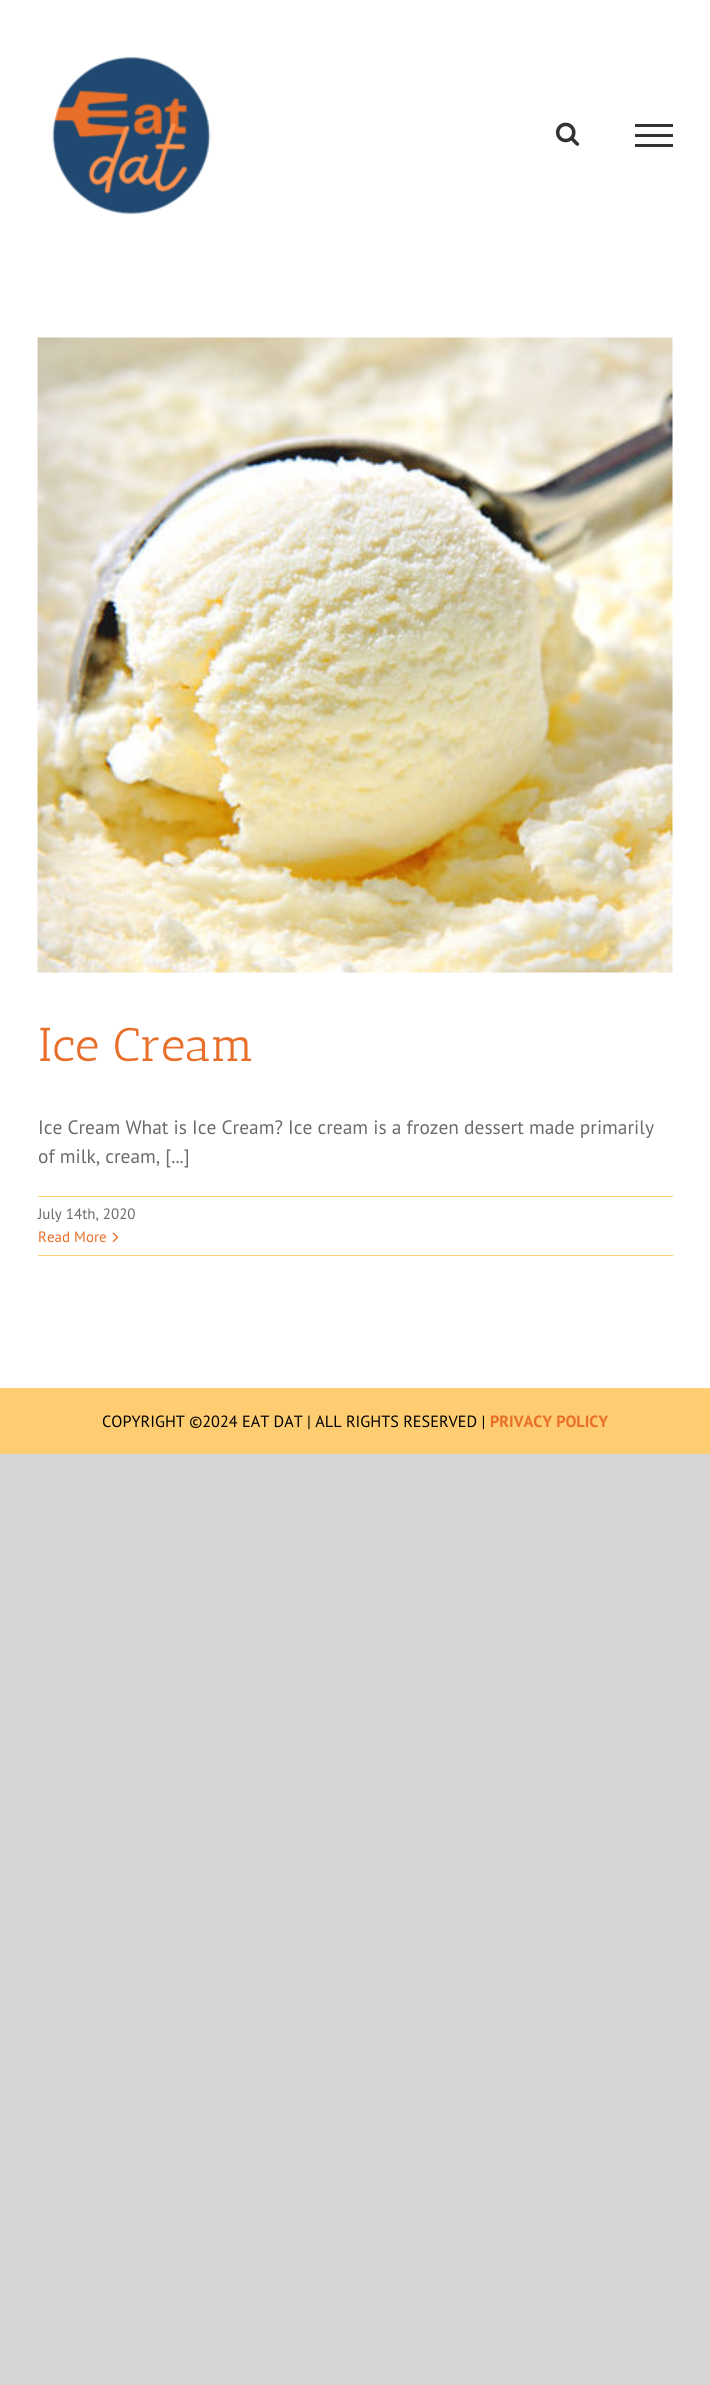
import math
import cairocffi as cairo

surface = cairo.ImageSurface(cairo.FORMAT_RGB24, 710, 2385)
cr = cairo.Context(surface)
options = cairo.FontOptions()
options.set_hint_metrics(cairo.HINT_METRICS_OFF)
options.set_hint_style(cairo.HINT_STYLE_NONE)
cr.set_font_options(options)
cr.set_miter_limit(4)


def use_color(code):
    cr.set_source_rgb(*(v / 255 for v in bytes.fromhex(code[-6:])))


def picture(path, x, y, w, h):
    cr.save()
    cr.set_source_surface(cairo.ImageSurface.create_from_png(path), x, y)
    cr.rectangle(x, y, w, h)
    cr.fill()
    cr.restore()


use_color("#d7d6d6")
cr.paint()
use_color("#ffffff")
cr.rectangle(0, 0, 710, 1388)
cr.fill()
picture("img1.png", 52, 56, 159, 158)
picture("img2.png", 555, 122, 25, 24)
use_color("#333333")
cr.rectangle(635, 124, 38, 3)
cr.fill()
cr.rectangle(635, 134, 38, 3)
cr.fill()
cr.rectangle(635, 144, 38, 3)
cr.fill()
picture("img3.png", 37, 337, 636, 636)
cr.select_font_face("Antic Slab")
cr.set_font_size(47.5)
use_color("#e86f2a")
cr.move_to(38, 1061)
cr.show_text("Ice Cream")
cr.select_font_face("PT Sans")
cr.set_font_size(19.4)
use_color("#6b6b6b")
cr.move_to(38, 1134)
cr.show_text("Ice Cream What is Ice Cream? Ice cream is a frozen dessert made primarily")
cr.move_to(38, 1163)
cr.show_text("of milk, cream, [...]")
use_color("#fecd72")
cr.rectangle(38, 1196, 635, 1)
cr.fill()
cr.rectangle(38, 1255, 635, 1)
cr.fill()
cr.set_font_size(15)
use_color("#6b6b6b")
cr.move_to(38, 1219)
cr.show_text("July 14th, 2020")
use_color("#e86f2a")
cr.move_to(38, 1242)
cr.show_text("Read More")
picture("img4.png", 112, 1232, 7, 11)
use_color("#fecd72")
cr.rectangle(0, 1388, 710, 66)
cr.fill()
cr.set_font_size(16.25)
use_color("#000000")
cr.move_to(102, 1427)
cr.show_text("COPYRIGHT ©2024 EAT DAT | ALL RIGHTS RESERVED |")
cr.select_font_face("PT Sans", cairo.FONT_SLANT_NORMAL, cairo.FONT_WEIGHT_BOLD)
use_color("#e86f2a")
cr.move_to(490, 1427)
cr.show_text("PRIVACY POLICY")
surface.write_to_png("result.png")
